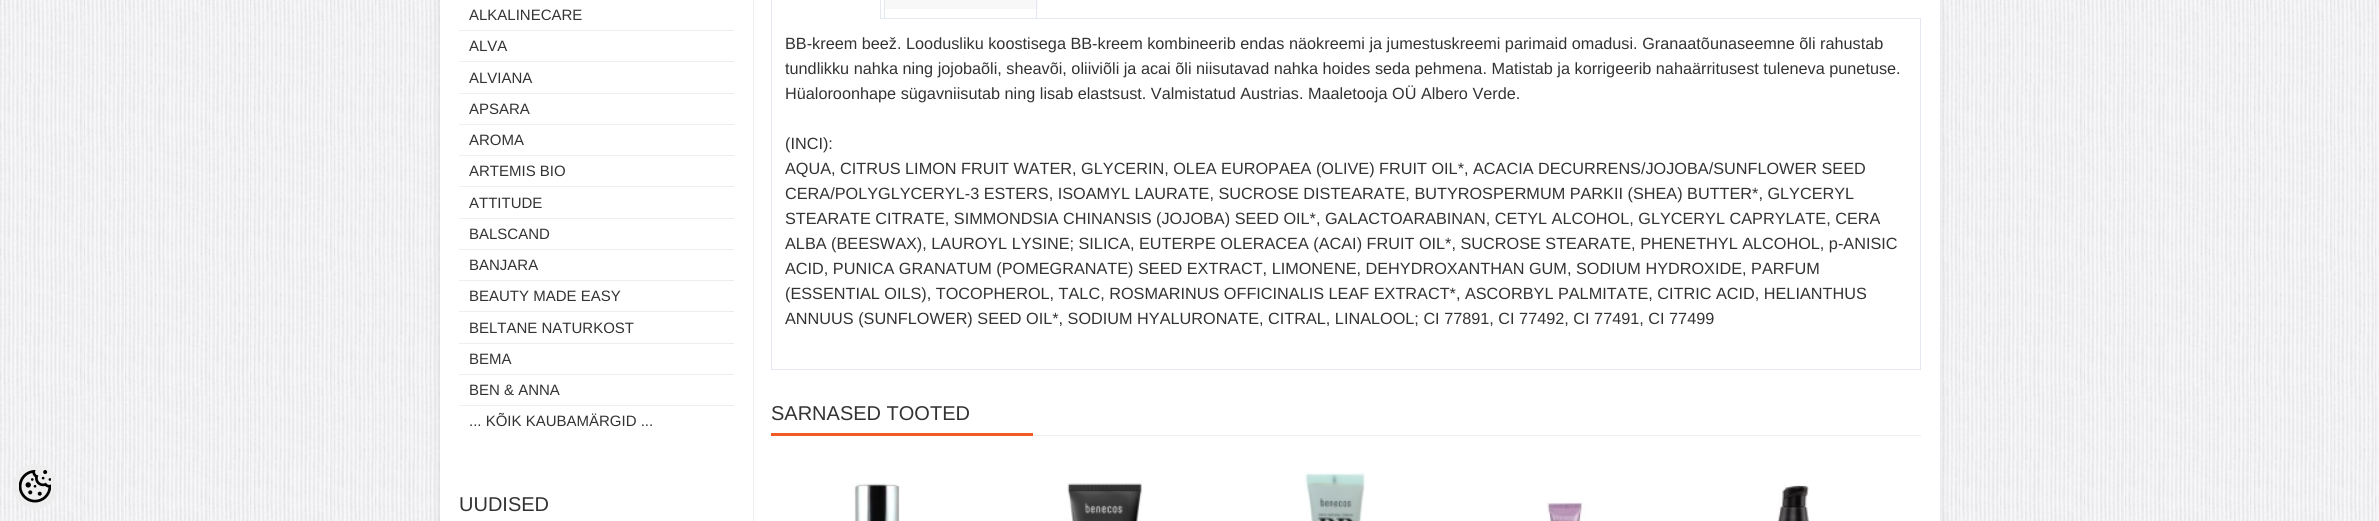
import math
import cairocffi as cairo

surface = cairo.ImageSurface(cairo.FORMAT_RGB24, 2379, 521)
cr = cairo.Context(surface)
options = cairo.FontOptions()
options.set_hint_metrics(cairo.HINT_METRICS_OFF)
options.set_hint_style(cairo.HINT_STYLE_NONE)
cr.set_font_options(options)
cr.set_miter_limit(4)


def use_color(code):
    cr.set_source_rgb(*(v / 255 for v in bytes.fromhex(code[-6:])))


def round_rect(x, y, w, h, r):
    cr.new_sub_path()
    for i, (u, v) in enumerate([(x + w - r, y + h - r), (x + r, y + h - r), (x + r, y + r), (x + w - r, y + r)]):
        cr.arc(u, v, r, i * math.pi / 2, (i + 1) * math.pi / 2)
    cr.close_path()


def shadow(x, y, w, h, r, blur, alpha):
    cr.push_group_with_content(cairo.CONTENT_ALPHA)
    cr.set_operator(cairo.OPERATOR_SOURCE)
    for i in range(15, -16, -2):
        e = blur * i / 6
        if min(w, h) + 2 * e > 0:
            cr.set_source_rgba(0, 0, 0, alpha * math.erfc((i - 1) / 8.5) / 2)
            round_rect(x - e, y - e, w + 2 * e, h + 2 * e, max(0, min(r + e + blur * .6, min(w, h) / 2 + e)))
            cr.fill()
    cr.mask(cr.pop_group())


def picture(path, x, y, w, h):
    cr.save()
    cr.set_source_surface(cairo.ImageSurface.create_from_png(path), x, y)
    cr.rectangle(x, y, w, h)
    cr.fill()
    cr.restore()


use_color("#f8f8fa")
cr.paint()
picture("img1.png", 0, 0, 2379, 521)
use_color("#eeeeee")
cr.arc(35.5, 486.5, 22.5, 0, 2 * math.pi)
cr.fill()
picture("img2.png", 19, 470, 32, 33)
use_color("#000000")
shadow(440, -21, 1500, 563, 6, 5, 0.08)
use_color("#ffffff")
cr.rectangle(440, 0, 1500, 521)
cr.fill()
use_color("#eeeeee")
cr.rectangle(753, 0, 1, 521)
cr.fill()
cr.select_font_face("Liberation Sans")
cr.set_font_size(15)
use_color("#333333")
cr.move_to(469, 20)
cr.show_text("ALKALINECARE")
use_color("#eeeeee")
cr.rectangle(459, 30, 275, 1)
cr.fill()
use_color("#333333")
cr.move_to(469, 51)
cr.show_text("ALVA")
use_color("#eeeeee")
cr.rectangle(459, 61, 275, 1)
cr.fill()
use_color("#333333")
cr.move_to(469, 83)
cr.show_text("ALVIANA")
use_color("#eeeeee")
cr.rectangle(459, 93, 275, 1)
cr.fill()
use_color("#333333")
cr.move_to(469, 114)
cr.show_text("APSARA")
use_color("#eeeeee")
cr.rectangle(459, 124, 275, 1)
cr.fill()
use_color("#333333")
cr.move_to(469, 145)
cr.show_text("AROMA")
use_color("#eeeeee")
cr.rectangle(459, 155, 275, 1)
cr.fill()
use_color("#333333")
cr.move_to(469, 176)
cr.show_text("ARTEMIS BIO")
use_color("#eeeeee")
cr.rectangle(459, 186, 275, 1)
cr.fill()
use_color("#333333")
cr.move_to(469, 208)
cr.show_text("ATTITUDE")
use_color("#eeeeee")
cr.rectangle(459, 218, 275, 1)
cr.fill()
use_color("#333333")
cr.move_to(469, 239)
cr.show_text("BALSCAND")
use_color("#eeeeee")
cr.rectangle(459, 249, 275, 1)
cr.fill()
use_color("#333333")
cr.move_to(469, 270)
cr.show_text("BANJARA")
use_color("#eeeeee")
cr.rectangle(459, 280, 275, 1)
cr.fill()
use_color("#333333")
cr.move_to(469, 301)
cr.show_text("BEAUTY MADE EASY")
use_color("#eeeeee")
cr.rectangle(459, 311, 275, 1)
cr.fill()
use_color("#333333")
cr.move_to(469, 333)
cr.show_text("BELTANE NATURKOST")
use_color("#eeeeee")
cr.rectangle(459, 343, 275, 1)
cr.fill()
use_color("#333333")
cr.move_to(469, 364)
cr.show_text("BEMA")
use_color("#eeeeee")
cr.rectangle(459, 374, 275, 1)
cr.fill()
use_color("#333333")
cr.move_to(469, 395)
cr.show_text("BEN & ANNA")
use_color("#eeeeee")
cr.rectangle(459, 405, 275, 1)
cr.fill()
use_color("#333333")
cr.move_to(469, 426)
cr.show_text("... KÕIK KAUBAMÄRGID ...")
cr.set_font_size(20)
cr.move_to(459, 511)
cr.show_text("UUDISED")
use_color("#e4e8f1")
cr.rectangle(881, 18, 1040, 1)
cr.fill()
cr.rectangle(880, 0, 1, 19)
cr.fill()
cr.rectangle(771, 0, 1, 19)
cr.fill()
use_color("#f8f8f8")
cr.rectangle(885, 0, 153, 9)
cr.fill()
use_color("#e4e8f1")
cr.rectangle(1036, 0, 1, 18)
cr.fill()
cr.rectangle(884, 0, 1, 18)
cr.fill()
cr.rectangle(1920, 19, 1, 351)
cr.fill()
cr.rectangle(771, 369, 1150, 1)
cr.fill()
cr.rectangle(771, 19, 1, 351)
cr.fill()
cr.set_font_size(16.25)
use_color("#333333")
cr.move_to(785, 49)
cr.show_text("BB-kreem beež. Loodusliku koostisega BB-kreem kombineerib endas näokreemi ja jumestuskreemi parimaid omadusi. Granaatõunaseemne õli rahustab")
cr.move_to(785, 74)
cr.show_text("tundlikku nahka ning jojobaõli, sheavõi, oliiviõli ja acai õli niisutavad nahka hoides seda pehmena. Matistab ja korrigeerib nahaärritusest tuleneva punetuse.")
cr.move_to(785, 99)
cr.show_text("Hüaloroonhape sügavniisutab ning lisab elastsust. Valmistatud Austrias. Maaletooja OÜ Albero Verde.")
cr.move_to(785, 149)
cr.show_text("(INCI):")
cr.move_to(785, 174)
cr.show_text("AQUA, CITRUS LIMON FRUIT WATER, GLYCERIN, OLEA EUROPAEA (OLIVE) FRUIT OIL*, ACACIA DECURRENS/JOJOBA/SUNFLOWER SEED")
cr.move_to(785, 199)
cr.show_text("CERA/POLYGLYCERYL-3 ESTERS, ISOAMYL LAURATE, SUCROSE DISTEARATE, BUTYROSPERMUM PARKII (SHEA) BUTTER*, GLYCERYL")
cr.move_to(785, 224)
cr.show_text("STEARATE CITRATE, SIMMONDSIA CHINANSIS (JOJOBA) SEED OIL*, GALACTOARABINAN, CETYL ALCOHOL, GLYCERYL CAPRYLATE, CERA")
cr.move_to(785, 249)
cr.show_text("ALBA (BEESWAX), LAUROYL LYSINE; SILICA, EUTERPE OLERACEA (ACAI) FRUIT OIL*, SUCROSE STEARATE, PHENETHYL ALCOHOL, p-ANISIC")
cr.move_to(785, 274)
cr.show_text("ACID, PUNICA GRANATUM (POMEGRANATE) SEED EXTRACT, LIMONENE, DEHYDROXANTHAN GUM, SODIUM HYDROXIDE, PARFUM")
cr.move_to(785, 299)
cr.show_text("(ESSENTIAL OILS), TOCOPHEROL, TALC, ROSMARINUS OFFICINALIS LEAF EXTRACT*, ASCORBYL PALMITATE, CITRIC ACID, HELIANTHUS")
cr.move_to(785, 324)
cr.show_text("ANNUUS (SUNFLOWER) SEED OIL*, SODIUM HYALURONATE, CITRAL, LINALOOL; CI 77891, CI 77492, CI 77491, CI 77499")
use_color("#eeeeee")
cr.rectangle(1033, 435, 888, 1)
cr.fill()
use_color("#f15a23")
cr.rectangle(771, 433, 262, 3)
cr.fill()
cr.set_font_size(20)
use_color("#333333")
cr.move_to(771, 420)
cr.show_text("SARNASED TOOTED")
picture("img3.png", 853, 483, 47, 38)
picture("img4.png", 1067, 483, 76, 38)
picture("img5.png", 1304, 472, 62, 49)
picture("img6.png", 1546, 502, 42, 19)
picture("img7.png", 1777, 485, 32, 36)
surface.write_to_png("result.png")
